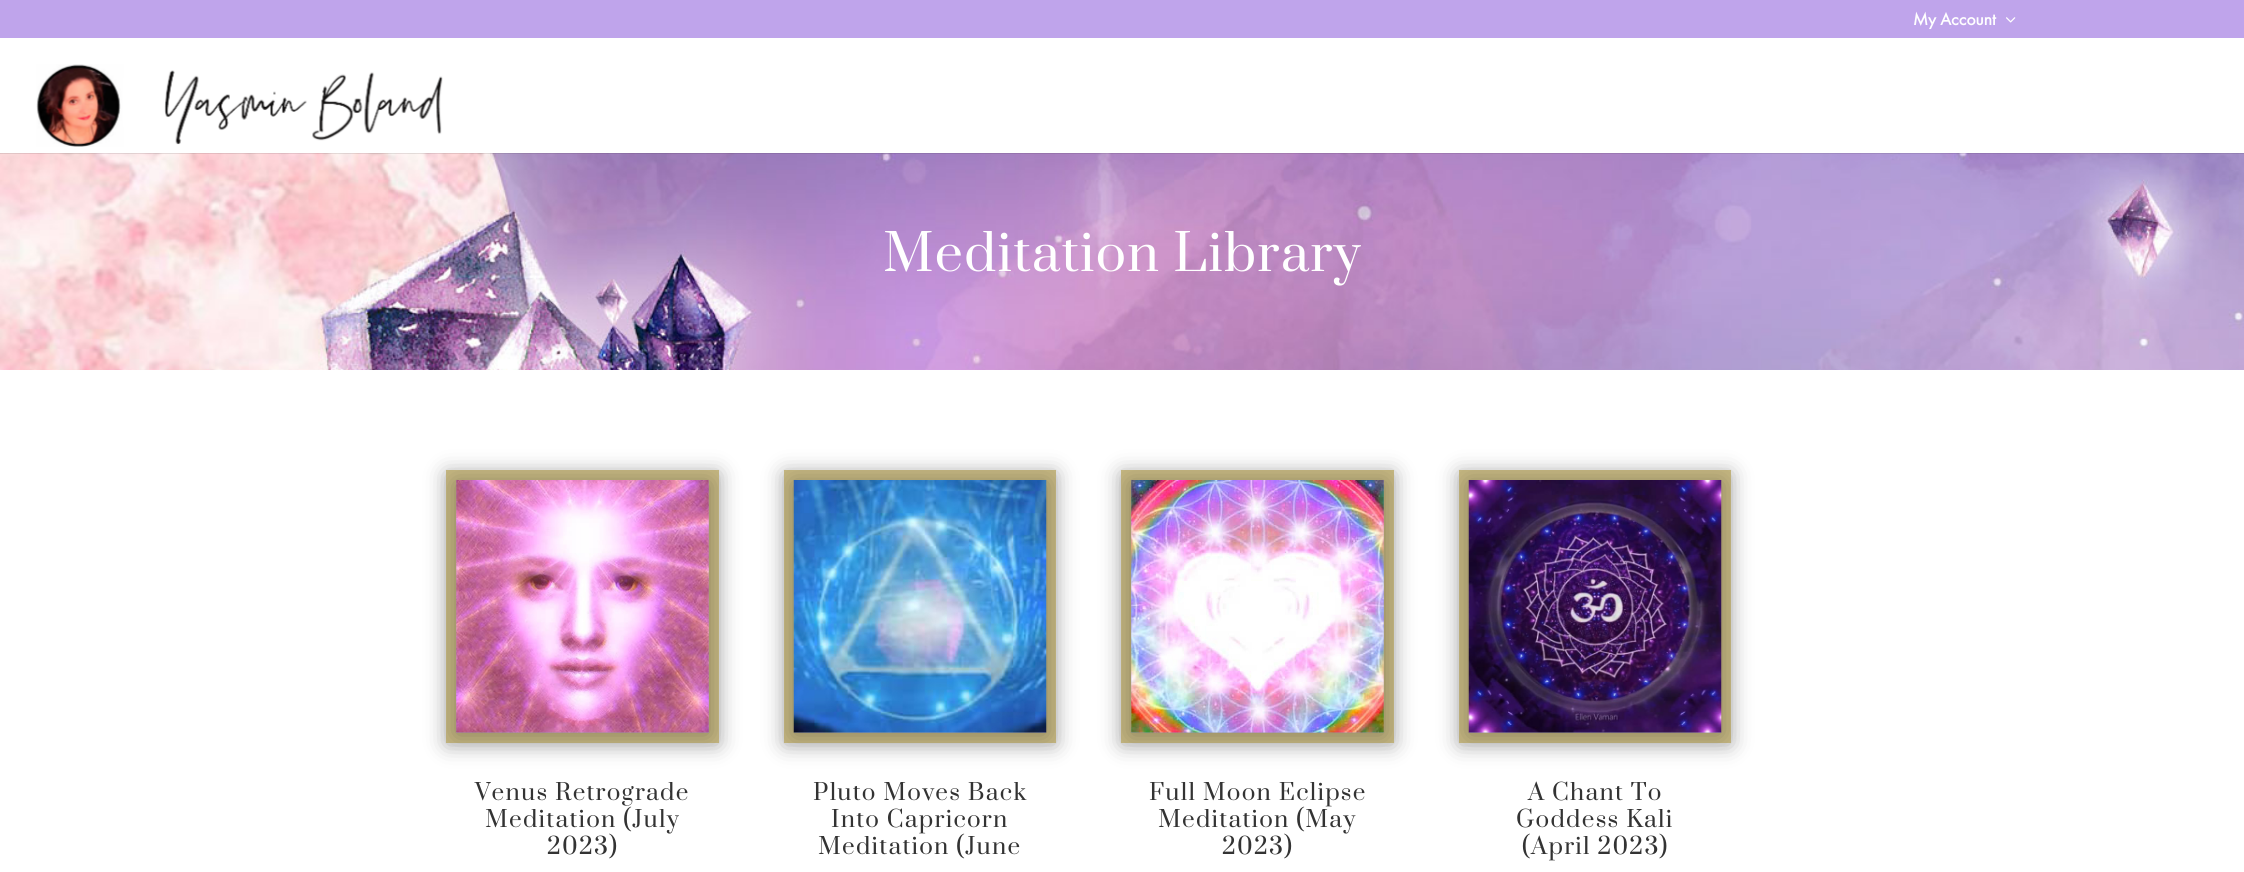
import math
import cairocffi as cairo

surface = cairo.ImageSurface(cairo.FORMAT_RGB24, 2244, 872)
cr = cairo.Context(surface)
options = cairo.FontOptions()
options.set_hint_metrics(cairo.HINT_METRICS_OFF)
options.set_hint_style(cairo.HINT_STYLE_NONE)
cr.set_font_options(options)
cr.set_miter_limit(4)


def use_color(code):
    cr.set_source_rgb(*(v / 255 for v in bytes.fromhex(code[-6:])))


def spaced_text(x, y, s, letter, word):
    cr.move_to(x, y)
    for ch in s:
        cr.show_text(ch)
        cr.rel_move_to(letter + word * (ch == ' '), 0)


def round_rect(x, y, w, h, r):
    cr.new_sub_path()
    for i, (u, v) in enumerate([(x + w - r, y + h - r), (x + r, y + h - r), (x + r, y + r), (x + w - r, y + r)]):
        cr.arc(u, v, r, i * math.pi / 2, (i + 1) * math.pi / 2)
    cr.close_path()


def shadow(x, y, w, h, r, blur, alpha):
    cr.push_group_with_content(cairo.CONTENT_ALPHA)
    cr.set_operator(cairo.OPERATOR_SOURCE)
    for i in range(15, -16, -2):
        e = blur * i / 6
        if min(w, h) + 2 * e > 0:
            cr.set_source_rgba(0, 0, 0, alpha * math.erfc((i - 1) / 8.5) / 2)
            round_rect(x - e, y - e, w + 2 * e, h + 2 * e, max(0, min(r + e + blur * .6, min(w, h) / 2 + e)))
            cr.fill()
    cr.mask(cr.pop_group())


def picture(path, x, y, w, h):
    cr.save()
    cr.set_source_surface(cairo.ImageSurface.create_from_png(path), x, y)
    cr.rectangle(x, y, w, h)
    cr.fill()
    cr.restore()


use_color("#ffffff")
cr.paint()
picture("img3.png", 0, 153, 2244, 217)
cr.set_source_rgba(0, 0, 0, 0.1)
cr.rectangle(0, 153, 2244, 1)
cr.fill()
use_color("#bfa4eb")
cr.rectangle(0, 0, 2244, 38)
cr.fill()
cr.select_font_face("Futura PT", cairo.FONT_SLANT_NORMAL, cairo.FONT_WEIGHT_BOLD)
cr.set_font_size(17.5)
use_color("#ffffff")
cr.move_to(1913, 25)
cr.show_text("My Account")
picture("img1.png", 2006, 17, 10, 6)
picture("img2.png", 36, 64, 407, 83)
cr.select_font_face("Prata")
cr.set_font_size(50)
spaced_text(883, 271, "Meditation Library", 1.25, 0)
use_color("#000000")
shadow(446, 473, 273, 272, 0, 11, 0.3)
cr.rectangle(451, 475, 263, 263)
use_color("#c4b681")
cr.set_line_width(10)
cr.stroke()
use_color("#000000")
shadow(456, 483, 253, 252, 0, 11, 0.3)
picture("img4.png", 456, 480, 253, 253)
cr.set_font_size(22.5)
use_color("#333333")
spaced_text(475, 800, "Venus Retrograde", 1.25, 0)
spaced_text(485, 827, "Meditation (July", 1.25, 0)
spaced_text(547, 854, "2023)", 1.25, 0)
use_color("#000000")
shadow(784, 473, 272, 272, 0, 11, 0.3)
cr.rectangle(789, 475, 262, 263)
use_color("#c4b681")
cr.stroke()
use_color("#000000")
shadow(794, 483, 252, 252, 0, 11, 0.3)
picture("img5.png", 793, 480, 254, 253)
use_color("#333333")
spaced_text(813, 800, "Pluto Moves Back", 1.25, 0)
spaced_text(831, 827, "Into Capricorn", 1.25, 0)
spaced_text(818, 854, "Meditation (June", 1.25, 0)
use_color("#000000")
shadow(1121, 473, 273, 272, 0, 11, 0.3)
cr.rectangle(1126, 475, 263, 263)
use_color("#c4b681")
cr.stroke()
use_color("#000000")
shadow(1131, 483, 253, 252, 0, 11, 0.3)
picture("img6.png", 1131, 480, 253, 253)
use_color("#333333")
spaced_text(1149, 800, "Full Moon Eclipse", 1.25, 0)
spaced_text(1158, 827, "Meditation (May", 1.25, 0)
spaced_text(1222, 854, "2023)", 1.25, 0)
use_color("#000000")
shadow(1459, 473, 272, 272, 0, 11, 0.3)
cr.rectangle(1464, 475, 262, 263)
use_color("#c4b681")
cr.stroke()
use_color("#000000")
shadow(1469, 483, 252, 252, 0, 11, 0.3)
picture("img7.png", 1468, 480, 254, 253)
use_color("#333333")
spaced_text(1528, 800, "A Chant To", 1.25, 0)
spaced_text(1516, 827, "Goddess Kali", 1.25, 0)
spaced_text(1522, 854, "(April 2023)", 1.25, 0)
surface.write_to_png("result.png")
